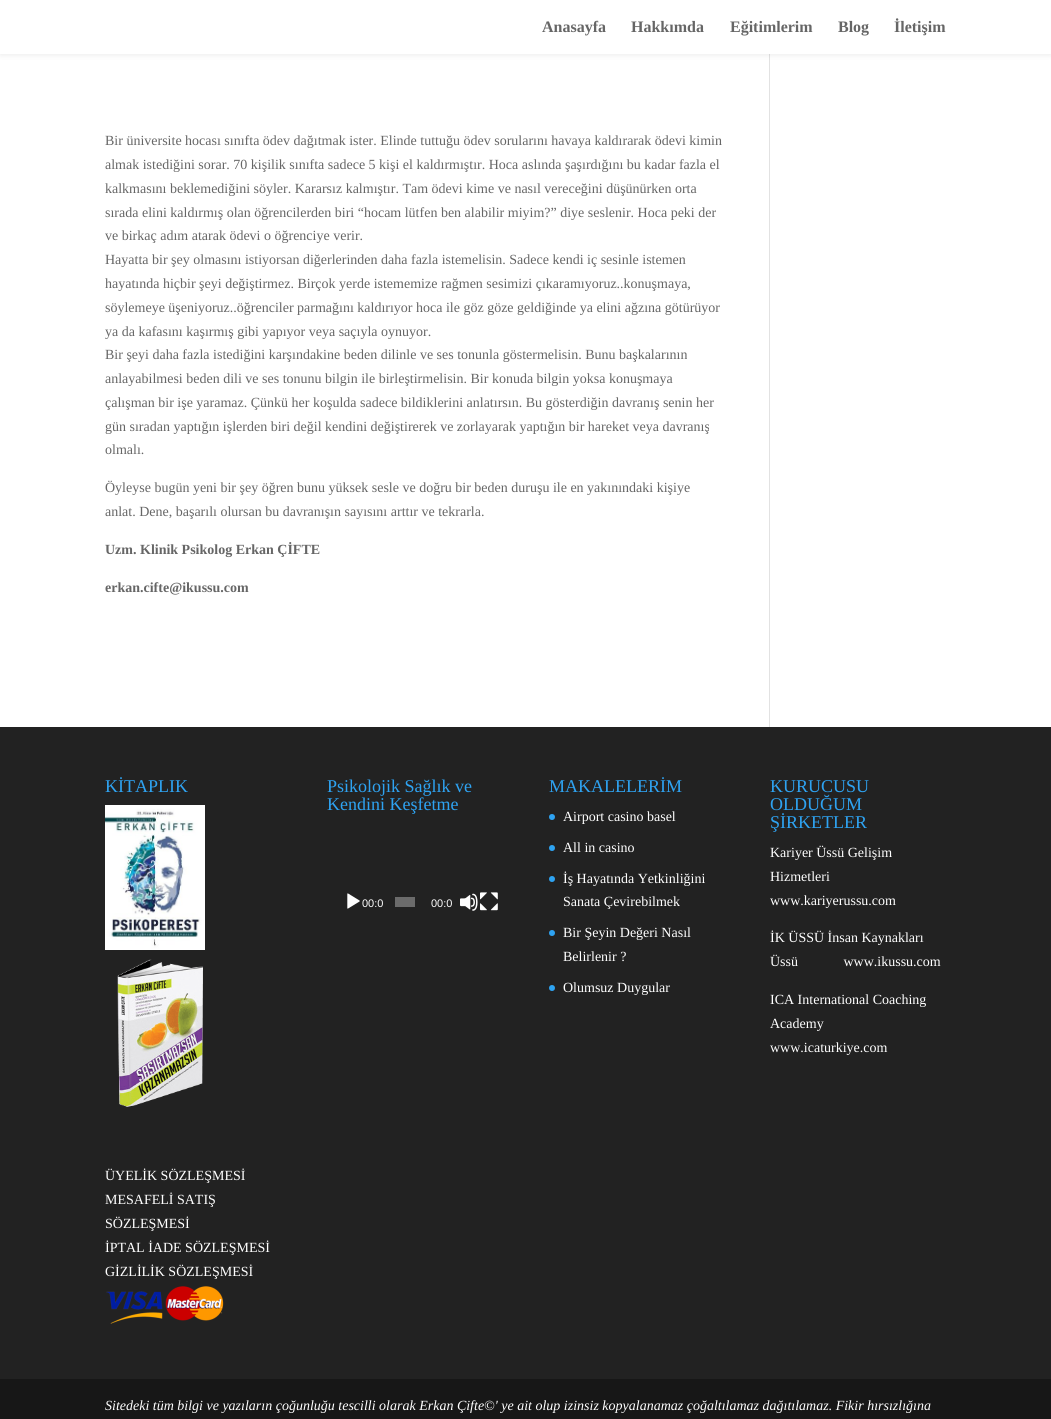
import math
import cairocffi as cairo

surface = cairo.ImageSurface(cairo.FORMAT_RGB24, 1051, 1419)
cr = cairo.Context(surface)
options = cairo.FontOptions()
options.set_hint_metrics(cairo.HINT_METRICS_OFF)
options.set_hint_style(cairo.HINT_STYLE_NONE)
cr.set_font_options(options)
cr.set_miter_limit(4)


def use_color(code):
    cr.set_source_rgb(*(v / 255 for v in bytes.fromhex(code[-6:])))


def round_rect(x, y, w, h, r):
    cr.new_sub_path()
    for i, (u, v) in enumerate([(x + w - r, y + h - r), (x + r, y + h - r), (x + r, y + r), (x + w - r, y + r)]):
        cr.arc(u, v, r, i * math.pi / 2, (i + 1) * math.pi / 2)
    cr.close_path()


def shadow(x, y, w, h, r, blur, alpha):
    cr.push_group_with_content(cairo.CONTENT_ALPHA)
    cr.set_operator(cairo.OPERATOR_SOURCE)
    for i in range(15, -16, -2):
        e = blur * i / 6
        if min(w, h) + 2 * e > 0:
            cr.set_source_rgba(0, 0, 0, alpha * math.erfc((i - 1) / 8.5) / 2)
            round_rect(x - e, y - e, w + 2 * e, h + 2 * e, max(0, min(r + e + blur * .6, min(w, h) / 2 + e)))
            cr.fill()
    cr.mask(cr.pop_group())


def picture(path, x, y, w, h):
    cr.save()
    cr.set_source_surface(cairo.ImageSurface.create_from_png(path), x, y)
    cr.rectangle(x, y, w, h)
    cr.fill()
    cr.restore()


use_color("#ffffff")
cr.paint()
use_color("#e2e2e2")
cr.rectangle(769, 54, 1, 673)
cr.fill()
use_color("#000000")
shadow(0, 0, 1051, 54, 0, 3.5, 0.1)
use_color("#ffffff")
cr.rectangle(0, 0, 1051, 54)
cr.fill()
cr.select_font_face("Liberation Serif", cairo.FONT_SLANT_NORMAL, cairo.FONT_WEIGHT_BOLD)
cr.set_font_size(16)
use_color("#666666")
cr.move_to(542, 32)
cr.show_text("Anasayfa")
cr.move_to(631, 32)
cr.show_text("Hakkımda")
cr.move_to(730, 32)
cr.show_text("Eğitimlerim")
cr.move_to(838, 32)
cr.show_text("Blog")
cr.move_to(894, 32)
cr.show_text("İletişim")
cr.select_font_face("Liberation Serif")
cr.set_font_size(14)
cr.move_to(105, 145)
cr.show_text("Bir üniversite hocası sınıfta ödev dağıtmak ister. Elinde tuttuğu ödev sorularını havaya kaldırarak ödevi kimin")
cr.move_to(105, 169)
cr.show_text("almak istediğini sorar. 70 kişilik sınıfta sadece 5 kişi el kaldırmıştır. Hoca aslında şaşırdığını bu kadar fazla el")
cr.move_to(105, 193)
cr.show_text("kalkmasını beklemediğini söyler. Kararsız kalmıştır. Tam ödevi kime ve nasıl vereceğini düşünürken orta")
cr.move_to(105, 217)
cr.show_text("sırada elini kaldırmış olan öğrencilerden biri “hocam lütfen ben alabilir miyim?” diye seslenir. Hoca peki der")
cr.move_to(105, 240)
cr.show_text("ve birkaç adım atarak ödevi o öğrenciye verir.")
cr.move_to(105, 264)
cr.show_text("Hayatta bir şey olmasını istiyorsan diğerlerinden daha fazla istemelisin. Sadece kendi iç sesinle istemen")
cr.move_to(105, 288)
cr.show_text("hayatında hiçbir şeyi değiştirmez. Birçok yerde istememize rağmen sesimizi çıkaramıyoruz..konuşmaya,")
cr.move_to(105, 312)
cr.show_text("söylemeye üşeniyoruz..öğrenciler parmağını kaldırıyor hoca ile göz göze geldiğinde ya elini ağzına götürüyor")
cr.move_to(105, 336)
cr.show_text("ya da kafasını kaşırmış gibi yapıyor veya saçıyla oynuyor.")
cr.move_to(105, 359)
cr.show_text("Bir şeyi daha fazla istediğini karşındakine beden dilinle ve ses tonunla göstermelisin. Bunu başkalarının")
cr.move_to(105, 383)
cr.show_text("anlayabilmesi beden dili ve ses tonunu bilgin ile birleştirmelisin. Bir konuda bilgin yoksa konuşmaya")
cr.move_to(105, 407)
cr.show_text("çalışman bir işe yaramaz. Çünkü her koşulda sadece bildiklerini anlatırsın. Bu gösterdiğin davranış senin her")
cr.move_to(105, 431)
cr.show_text("gün sıradan yaptığın işlerden biri değil kendini değiştirerek ve zorlayarak yaptığın bir hareket veya davranış")
cr.move_to(105, 454)
cr.show_text("olmalı.")
cr.move_to(105, 492)
cr.show_text("Öyleyse bugün yeni bir şey öğren bunu yüksek sesle ve doğru bir beden duruşu ile en yakınındaki kişiye")
cr.move_to(105, 516)
cr.show_text("anlat. Dene, başarılı olursan bu davranışın sayısını arttır ve tekrarla.")
cr.select_font_face("Liberation Serif", cairo.FONT_SLANT_NORMAL, cairo.FONT_WEIGHT_BOLD)
cr.move_to(105, 554)
cr.show_text("Uzm. Klinik Psikolog Erkan ÇİFTE")
cr.move_to(105, 592)
cr.show_text("erkan.cifte@ikussu.com")
use_color("#222222")
cr.rectangle(0, 727, 1051, 652)
cr.fill()
cr.select_font_face("Liberation Serif")
cr.set_font_size(18)
use_color("#2ea3f2")
cr.move_to(105, 792)
cr.show_text("KİTAPLIK")
picture("img1.png", 105, 805, 100, 145)
picture("img2.png", 117, 959, 86, 148)
cr.set_font_size(14)
use_color("#ffffff")
cr.move_to(105, 1180)
cr.show_text("ÜYELİK SÖZLEŞMESİ")
cr.move_to(105, 1204)
cr.show_text("MESAFELİ SATIŞ")
cr.move_to(105, 1228)
cr.show_text("SÖZLEŞMESİ")
cr.move_to(105, 1252)
cr.show_text("İPTAL İADE SÖZLEŞMESİ")
cr.move_to(105, 1276)
cr.show_text("GİZLİLİK SÖZLEŞMESİ")
picture("img3.png", 106, 1286, 118, 38)
cr.set_font_size(18)
use_color("#2ea3f2")
cr.move_to(327, 792)
cr.show_text("Psikolojik Sağlık ve")
cr.move_to(327, 810)
cr.show_text("Kendini Keşfetme")
picture("img4.png", 347, 893, 13, 16)
cr.select_font_face("Liberation Sans")
cr.set_font_size(11)
use_color("#ffffff")
cr.move_to(362, 907)
cr.show_text("00:0")
use_color("#6b6b6b")
cr.rectangle(395, 897, 20, 10)
cr.fill()
use_color("#ffffff")
cr.move_to(431, 907)
cr.show_text("00:0")
picture("img5.png", 460, 893, 18, 18)
picture("img6.png", 480, 892, 18, 19)
cr.select_font_face("Liberation Serif")
cr.set_font_size(18)
use_color("#2ea3f2")
cr.move_to(549, 792)
cr.show_text("MAKALELERİM")
cr.new_path()
cr.arc(552, 817, 3, 0, 2 * math.pi)
cr.fill()
cr.set_font_size(14)
use_color("#ffffff")
cr.move_to(563, 821)
cr.show_text("Airport casino basel")
use_color("#2ea3f2")
cr.new_path()
cr.arc(552, 848, 3, 0, 2 * math.pi)
cr.fill()
use_color("#ffffff")
cr.move_to(563, 852)
cr.show_text("All in casino")
use_color("#2ea3f2")
cr.new_path()
cr.arc(552, 879, 3, 0, 2 * math.pi)
cr.fill()
use_color("#ffffff")
cr.move_to(563, 883)
cr.show_text("İş Hayatında Yetkinliğini")
cr.move_to(563, 906)
cr.show_text("Sanata Çevirebilmek")
use_color("#2ea3f2")
cr.new_path()
cr.arc(552, 933, 3, 0, 2 * math.pi)
cr.fill()
use_color("#ffffff")
cr.move_to(563, 937)
cr.show_text("Bir Şeyin Değeri Nasıl")
cr.move_to(563, 961)
cr.show_text("Belirlenir ?")
use_color("#2ea3f2")
cr.new_path()
cr.arc(552, 988, 3, 0, 2 * math.pi)
cr.fill()
use_color("#ffffff")
cr.move_to(563, 992)
cr.show_text("Olumsuz Duygular")
cr.set_font_size(18)
use_color("#2ea3f2")
cr.move_to(770, 792)
cr.show_text("KURUCUSU")
cr.move_to(770, 810)
cr.show_text("OLDUĞUM")
cr.move_to(770, 828)
cr.show_text("ŞİRKETLER")
cr.set_font_size(14)
use_color("#ffffff")
cr.move_to(770, 857)
cr.show_text("Kariyer Üssü Gelişim")
cr.move_to(770, 881)
cr.show_text("Hizmetleri")
cr.move_to(770, 905)
cr.show_text("www.kariyerussu.com")
cr.move_to(770, 942)
cr.show_text("İK ÜSSÜ İnsan Kaynakları")
cr.move_to(770, 966)
cr.show_text("Üssü             www.ikussu.com")
cr.move_to(770, 1004)
cr.show_text("ICA International Coaching")
cr.move_to(770, 1028)
cr.show_text("Academy")
cr.move_to(770, 1052)
cr.show_text("www.icaturkiye.com")
use_color("#171717")
cr.rectangle(0, 1379, 1051, 40)
cr.fill()
cr.select_font_face("Liberation Serif", cairo.FONT_SLANT_ITALIC)
use_color("#ffffff")
cr.move_to(105, 1410)
cr.show_text("Sitedeki tüm bilgi ve yazıların çoğunluğu tescilli olarak Erkan Çifte©' ye ait olup izinsiz kopyalanamaz çoğaltılamaz dağıtılamaz. Fikir hırsızlığına")
surface.write_to_png("result.png")
